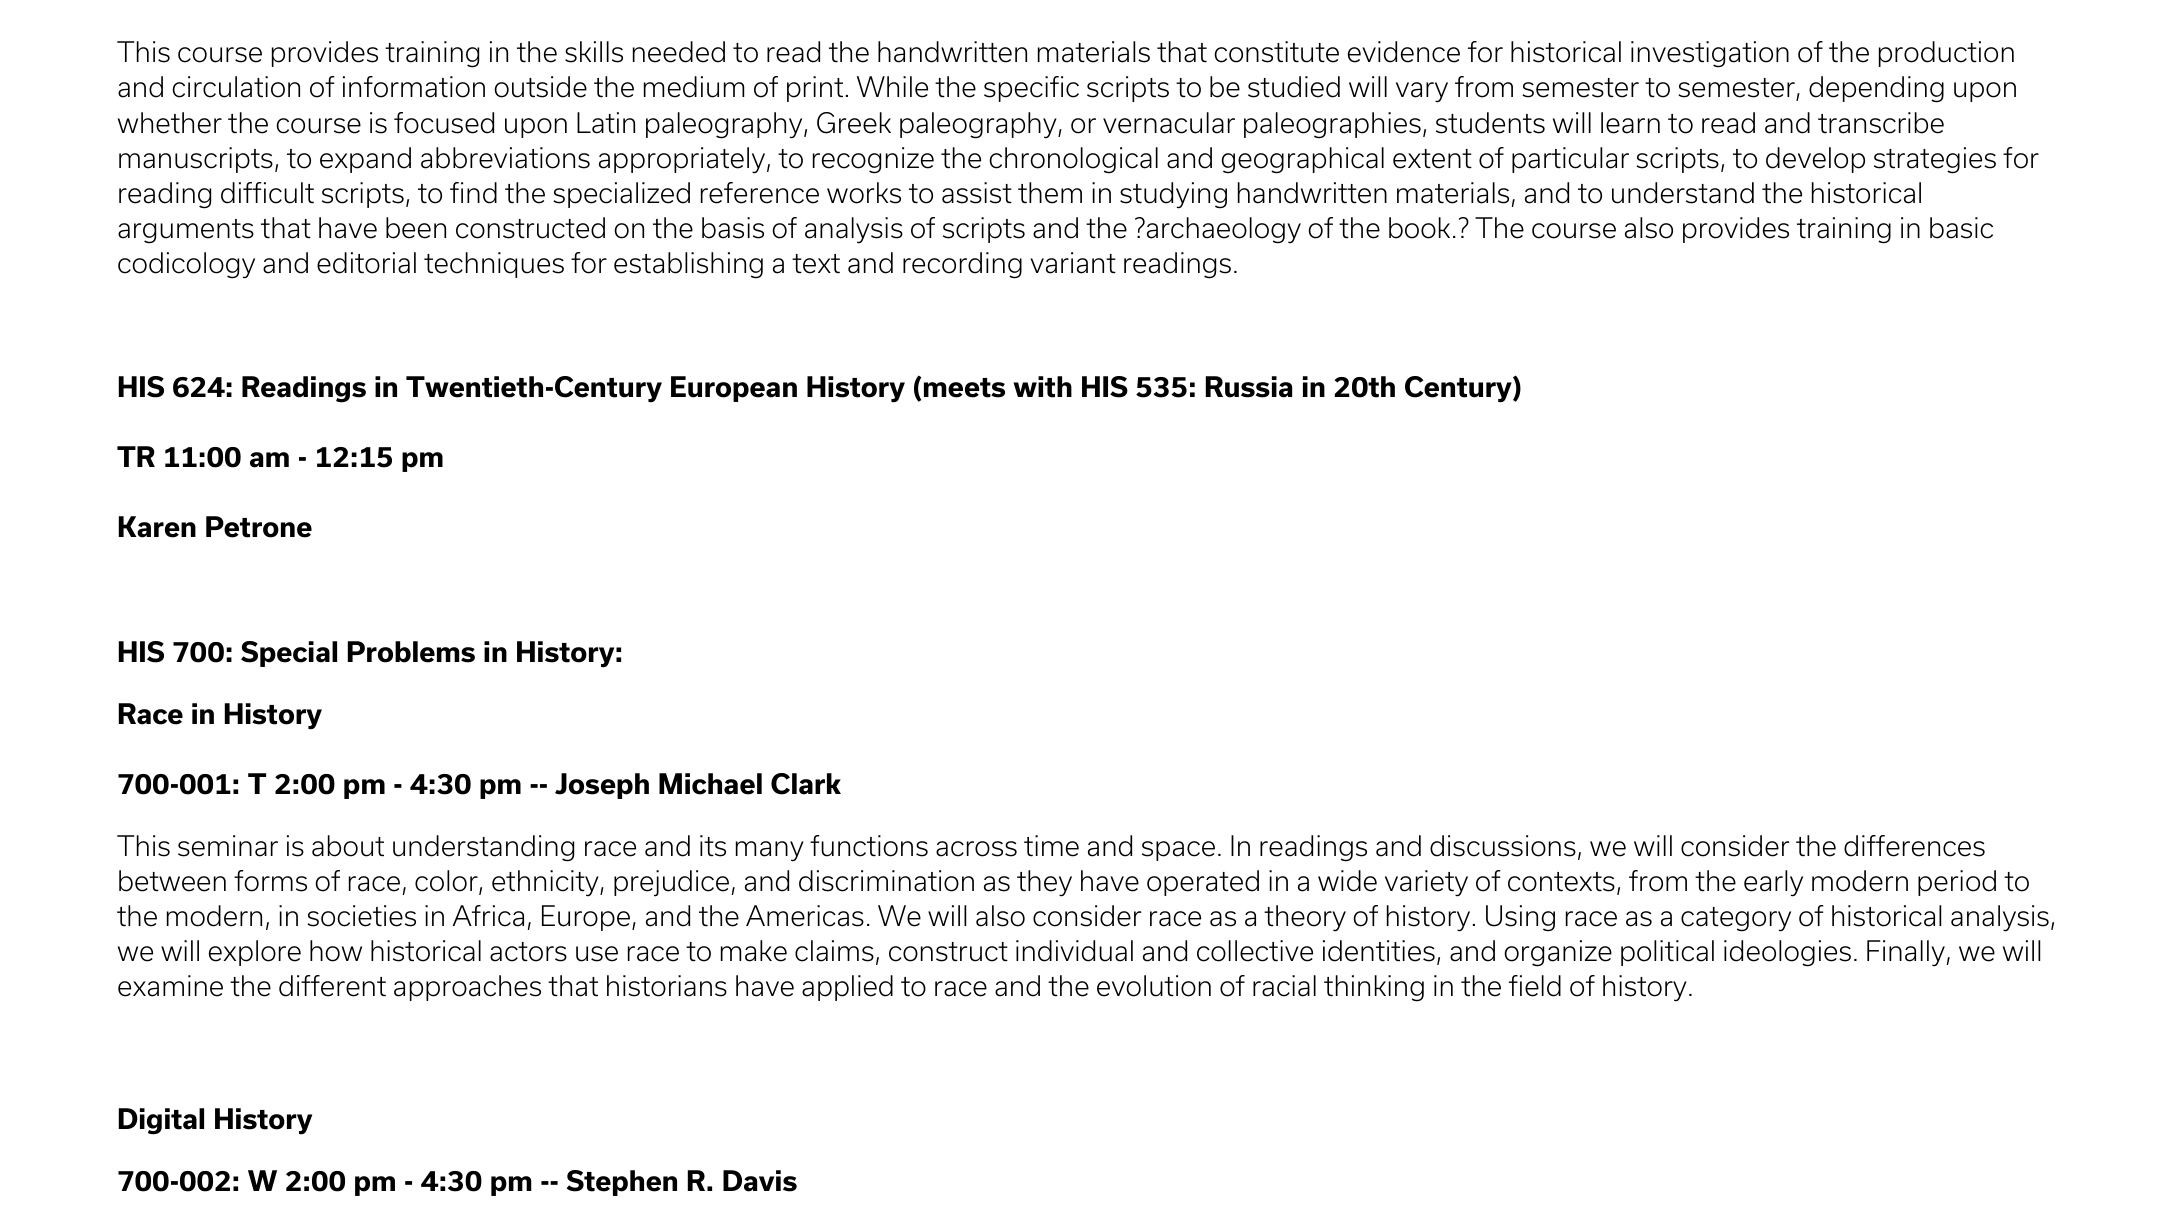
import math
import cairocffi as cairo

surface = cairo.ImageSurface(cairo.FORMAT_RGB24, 2178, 1217)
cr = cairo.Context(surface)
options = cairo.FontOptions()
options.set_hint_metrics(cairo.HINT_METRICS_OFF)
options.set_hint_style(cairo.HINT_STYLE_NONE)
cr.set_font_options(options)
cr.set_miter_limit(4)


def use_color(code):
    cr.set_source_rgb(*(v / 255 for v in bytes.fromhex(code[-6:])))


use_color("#ffffff")
cr.paint()
cr.select_font_face("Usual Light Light")
cr.set_font_size(27)
use_color("#000000")
cr.move_to(117, 62)
cr.show_text("This course provides training in the skills needed to read the handwritten materials that constitute evidence for historical investigation of the production")
cr.move_to(117, 97)
cr.show_text("and circulation of information outside the medium of print. While the specific scripts to be studied will vary from semester to semester, depending upon")
cr.move_to(117, 133)
cr.show_text("whether the course is focused upon Latin paleography, Greek paleography, or vernacular paleographies, students will learn to read and transcribe")
cr.move_to(117, 168)
cr.show_text("manuscripts, to expand abbreviations appropriately, to recognize the chronological and geographical extent of particular scripts, to develop strategies for")
cr.move_to(117, 203)
cr.show_text("reading difficult scripts, to find the specialized reference works to assist them in studying handwritten materials, and to understand the historical")
cr.move_to(117, 238)
cr.show_text("arguments that have been constructed on the basis of analysis of scripts and the ?archaeology of the book.? The course also provides training in basic")
cr.move_to(117, 273)
cr.show_text("codicology and editorial techniques for establishing a text and recording variant readings.")
cr.select_font_face("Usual", cairo.FONT_SLANT_NORMAL, cairo.FONT_WEIGHT_BOLD)
cr.move_to(117, 397)
cr.show_text("HIS 624: Readings in Twentieth-Century European History (meets with HIS 535: Russia in 20th Century)")
cr.move_to(117, 467)
cr.show_text("TR 11:00 am - 12:15 pm")
cr.move_to(117, 537)
cr.show_text("Karen Petrone")
cr.move_to(117, 662)
cr.show_text("HIS 700: Special Problems in History:")
cr.move_to(117, 724)
cr.show_text("Race in History")
cr.move_to(117, 794)
cr.show_text("700-001: T 2:00 pm - 4:30 pm -- Joseph Michael Clark")
cr.select_font_face("Usual Light Light")
cr.move_to(117, 856)
cr.show_text("This seminar is about understanding race and its many functions across time and space. In readings and discussions, we will consider the differences")
cr.move_to(117, 891)
cr.show_text("between forms of race, color, ethnicity, prejudice, and discrimination as they have operated in a wide variety of contexts, from the early modern period to")
cr.move_to(117, 926)
cr.show_text("the modern, in societies in Africa, Europe, and the Americas. We will also consider race as a theory of history. Using race as a category of historical analysis,")
cr.move_to(117, 961)
cr.show_text("we will explore how historical actors use race to make claims, construct individual and collective identities, and organize political ideologies. Finally, we will")
cr.move_to(117, 996)
cr.show_text("examine the different approaches that historians have applied to race and the evolution of racial thinking in the field of history.")
cr.select_font_face("Usual", cairo.FONT_SLANT_NORMAL, cairo.FONT_WEIGHT_BOLD)
cr.move_to(117, 1129)
cr.show_text("Digital History")
cr.move_to(117, 1191)
cr.show_text("700-002: W 2:00 pm - 4:30 pm -- Stephen R. Davis")
surface.write_to_png("result.png")
